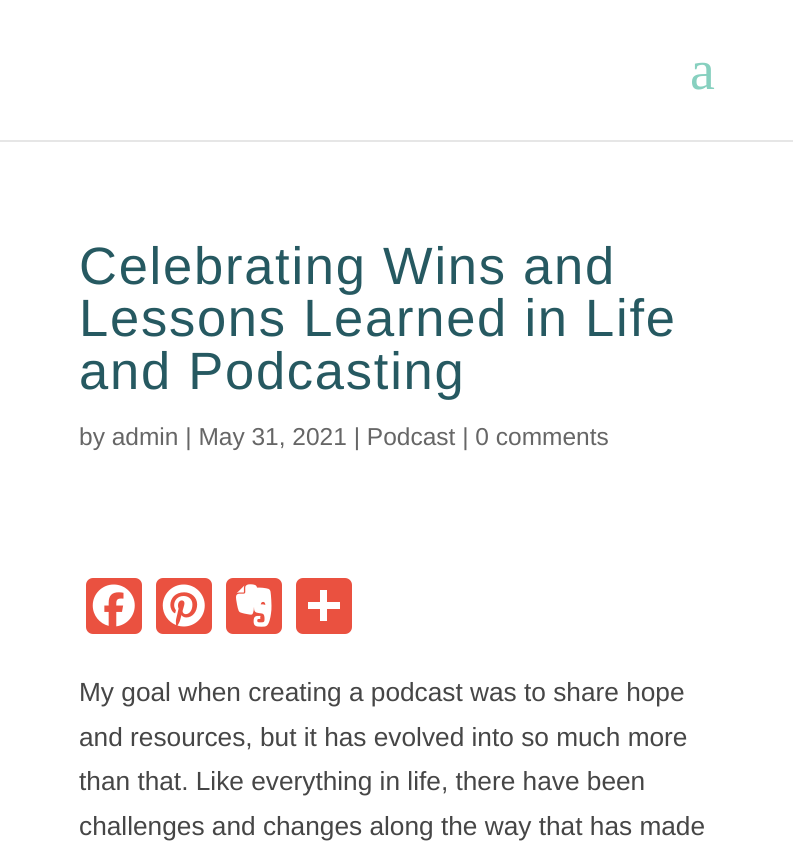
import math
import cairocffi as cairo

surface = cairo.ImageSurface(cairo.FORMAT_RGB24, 793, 860)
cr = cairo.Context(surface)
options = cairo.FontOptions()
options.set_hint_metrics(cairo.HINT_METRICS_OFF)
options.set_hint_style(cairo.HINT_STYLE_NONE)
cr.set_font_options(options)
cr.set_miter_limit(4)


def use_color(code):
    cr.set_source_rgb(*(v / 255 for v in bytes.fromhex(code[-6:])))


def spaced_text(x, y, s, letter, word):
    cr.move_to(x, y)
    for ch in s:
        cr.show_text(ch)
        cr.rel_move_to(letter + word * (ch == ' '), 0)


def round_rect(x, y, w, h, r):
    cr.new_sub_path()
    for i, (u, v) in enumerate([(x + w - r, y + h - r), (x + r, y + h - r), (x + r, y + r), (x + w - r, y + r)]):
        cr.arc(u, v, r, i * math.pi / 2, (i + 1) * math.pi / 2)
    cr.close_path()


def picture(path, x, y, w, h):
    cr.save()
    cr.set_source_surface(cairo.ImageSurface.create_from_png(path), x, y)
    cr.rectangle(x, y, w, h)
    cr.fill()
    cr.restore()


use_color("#ffffff")
cr.paint()
use_color("#e6e6e6")
cr.new_path()
cr.move_to(0, 140)
cr.line_to(0, 142)
cr.line_to(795, 142)
cr.line_to(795, 2)
cr.line_to(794, 2)
cr.line_to(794, 140)
cr.close_path()
cr.fill()
cr.select_font_face("Liberation Serif")
cr.set_font_size(56)
use_color("#87d0bf")
cr.move_to(690, 89)
cr.show_text("a")
cr.select_font_face("Liberation Sans")
cr.set_font_size(52.5)
use_color("#265961")
spaced_text(79, 284, "Celebrating Wins and", 1.75, 0)
spaced_text(79, 336, "Lessons Learned in Life", 1.75, 0)
spaced_text(79, 389, "and Podcasting", 1.75, 0)
cr.set_font_size(24.5)
use_color("#666666")
cr.move_to(79, 445)
cr.show_text("by admin | May 31, 2021 | Podcast | 0 comments")
use_color("#ea5140")
round_rect(86, 578, 56, 56, 7)
cr.fill()
picture("img1.png", 92, 584, 43, 43)
round_rect(156, 578, 56, 56, 7)
cr.fill()
picture("img2.png", 162, 584, 43, 43)
round_rect(226, 578, 56, 56, 7)
cr.fill()
picture("img3.png", 236, 584, 36, 43)
round_rect(296, 578, 56, 56, 7)
cr.fill()
use_color("#ffffff")
cr.rectangle(320, 590, 7, 31)
cr.fill()
cr.rectangle(308, 602, 32, 7)
cr.fill()
cr.set_font_size(26.25)
use_color("#464646")
cr.move_to(79, 701)
cr.show_text("My goal when creating a podcast was to share hope")
cr.move_to(79, 746)
cr.show_text("and resources, but it has evolved into so much more")
cr.move_to(79, 790)
cr.show_text("than that. Like everything in life, there have been")
cr.move_to(79, 835)
cr.show_text("challenges and changes along the way that has made")
surface.write_to_png("result.png")
